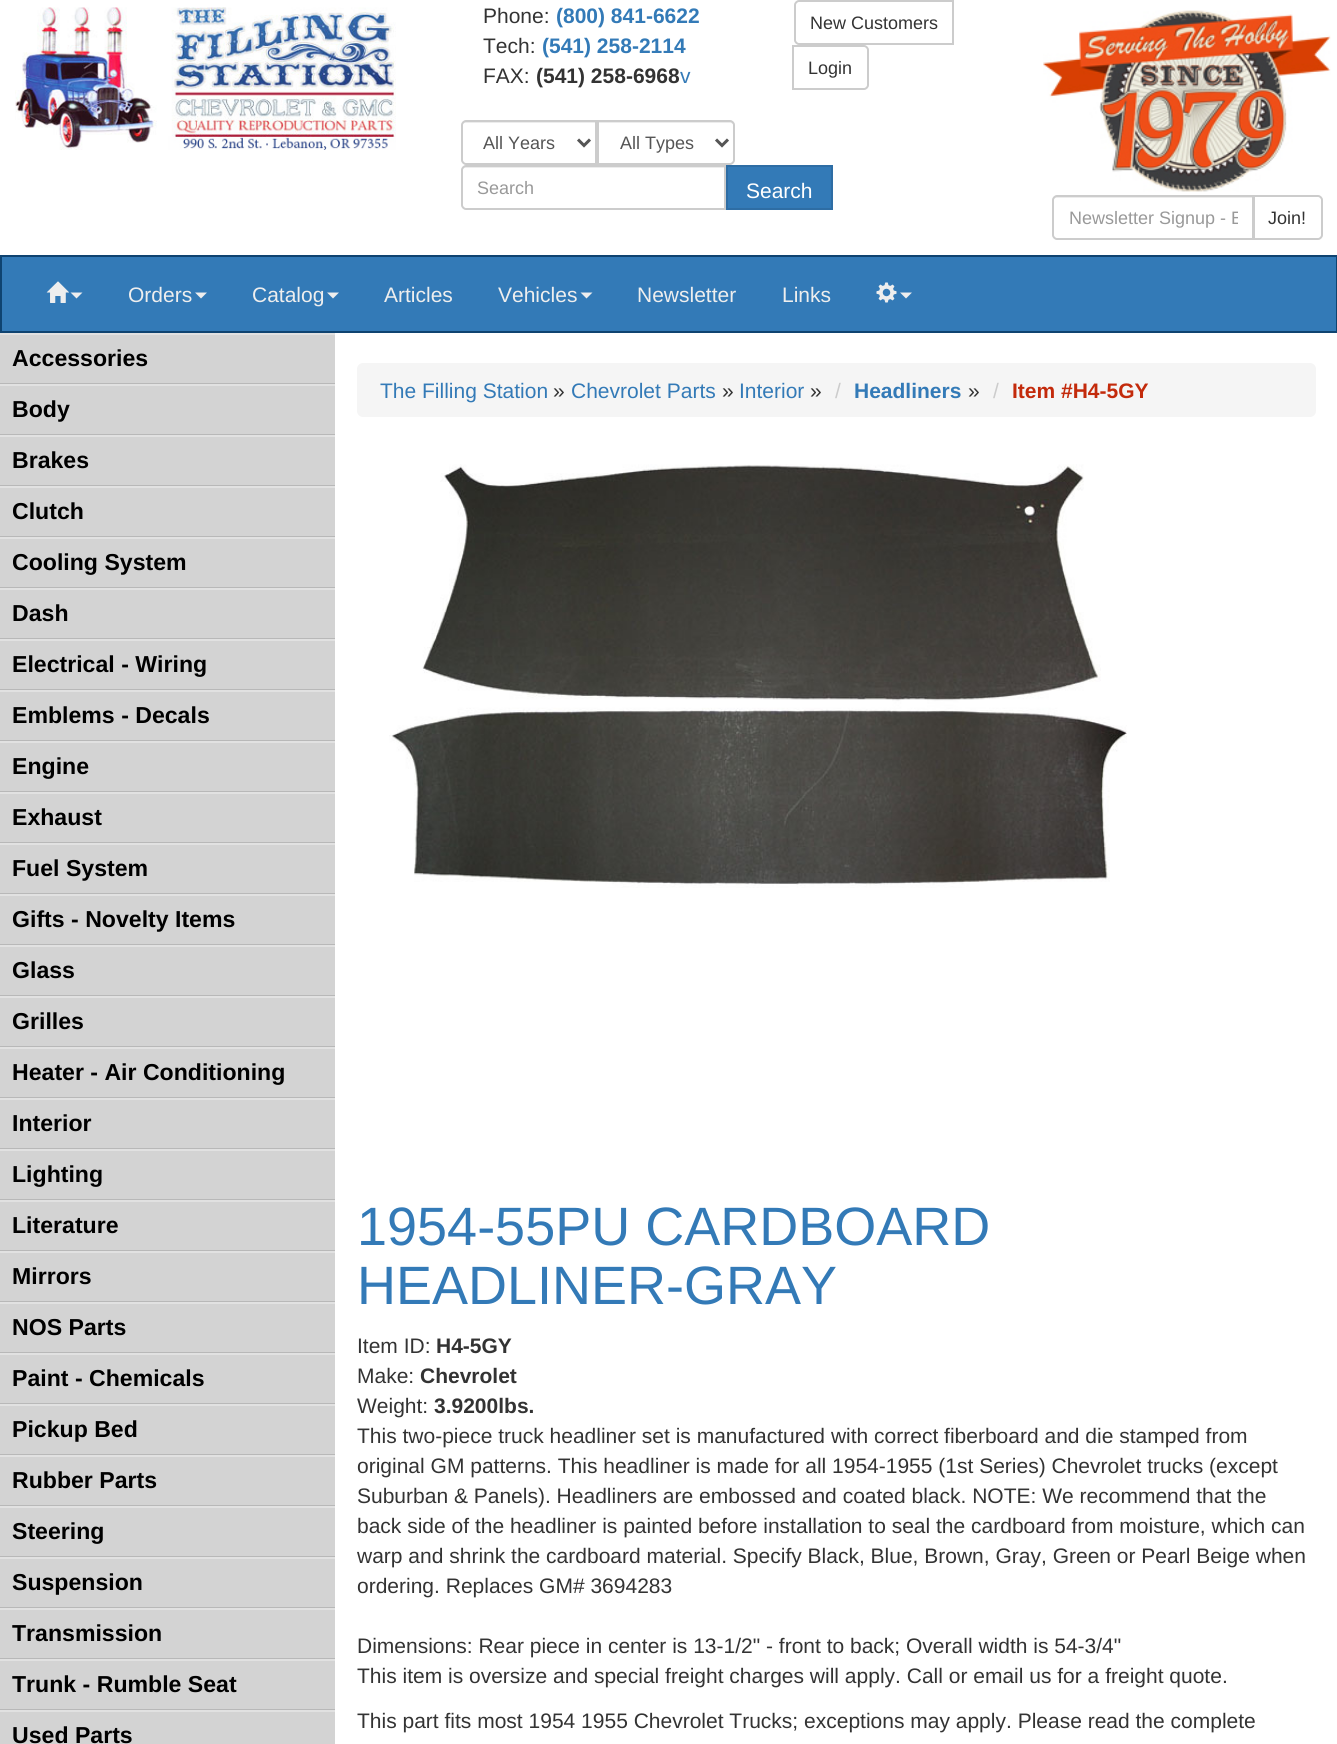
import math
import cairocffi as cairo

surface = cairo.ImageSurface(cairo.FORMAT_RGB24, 1337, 1744)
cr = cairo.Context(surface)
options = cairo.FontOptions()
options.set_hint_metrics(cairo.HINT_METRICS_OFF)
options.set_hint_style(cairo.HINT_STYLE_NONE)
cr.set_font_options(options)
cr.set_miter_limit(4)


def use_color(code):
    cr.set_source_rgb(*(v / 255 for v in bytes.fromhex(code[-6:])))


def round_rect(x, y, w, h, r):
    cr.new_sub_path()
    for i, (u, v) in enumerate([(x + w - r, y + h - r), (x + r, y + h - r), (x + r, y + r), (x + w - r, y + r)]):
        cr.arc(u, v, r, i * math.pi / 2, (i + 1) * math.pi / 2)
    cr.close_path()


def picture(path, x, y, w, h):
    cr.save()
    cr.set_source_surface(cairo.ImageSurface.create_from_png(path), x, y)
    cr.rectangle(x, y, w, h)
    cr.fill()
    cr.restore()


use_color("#ffffff")
cr.paint()
picture("img1.png", 15, 7, 381, 143)
cr.select_font_face("Liberation Sans")
cr.set_font_size(21)
use_color("#333333")
cr.move_to(483, 23)
cr.show_text("Phone:")
cr.select_font_face("Liberation Sans", cairo.FONT_SLANT_NORMAL, cairo.FONT_WEIGHT_BOLD)
use_color("#337ab7")
cr.move_to(556, 23)
cr.show_text("(800) 841-6622")
cr.select_font_face("Liberation Sans")
use_color("#333333")
cr.move_to(483, 53)
cr.show_text("Tech:")
cr.select_font_face("Liberation Sans", cairo.FONT_SLANT_NORMAL, cairo.FONT_WEIGHT_BOLD)
use_color("#337ab7")
cr.move_to(542, 53)
cr.show_text("(541) 258-2114")
cr.select_font_face("Liberation Sans")
use_color("#333333")
cr.move_to(483, 83)
cr.show_text("FAX:")
cr.select_font_face("Liberation Sans", cairo.FONT_SLANT_NORMAL, cairo.FONT_WEIGHT_BOLD)
cr.move_to(536, 83)
cr.show_text("(541) 258-6968")
cr.select_font_face("Liberation Sans")
use_color("#337ab7")
cr.move_to(680, 83)
cr.show_text("v")
cr.new_path()
cr.move_to(799, 1)
cr.line_to(953, 1)
cr.line_to(953, 44)
cr.line_to(799, 44)
cr.curve_to(797, 44, 795, 42, 795, 40)
cr.line_to(795, 5)
cr.curve_to(795, 3, 797, 1, 799, 1)
cr.close_path()
use_color("#cccccc")
cr.stroke()
cr.set_font_size(18)
use_color("#333333")
cr.move_to(810, 29)
cr.show_text("New Customers")
cr.new_path()
cr.move_to(793, 46)
cr.line_to(864, 46)
cr.curve_to(866, 46, 868, 48, 868, 50)
cr.line_to(868, 85)
cr.curve_to(868, 87, 866, 89, 864, 89)
cr.line_to(793, 89)
cr.close_path()
use_color("#cccccc")
cr.stroke()
use_color("#333333")
cr.move_to(808, 74)
cr.show_text("Login")
use_color("#ececec")
cr.new_path()
cr.move_to(465, 123)
cr.line_to(596, 123)
cr.line_to(596, 122)
cr.line_to(465, 122)
cr.curve_to(463, 122, 462, 124, 462, 126)
cr.curve_to(462, 124, 463, 123, 465, 123)
cr.close_path()
cr.fill()
cr.new_path()
cr.move_to(466, 121)
cr.line_to(596, 121)
cr.line_to(596, 164)
cr.line_to(466, 164)
cr.curve_to(464, 164, 462, 162, 462, 160)
cr.line_to(462, 125)
cr.curve_to(462, 123, 464, 121, 466, 121)
cr.close_path()
use_color("#cccccc")
cr.stroke()
cr.new_path()
cr.move_to(578, 139.5)
cr.line_to(584, 145.5)
cr.line_to(590, 139.5)
use_color("#555555")
cr.set_line_width(3)
cr.stroke()
cr.move_to(483, 149)
cr.show_text("All Years")
use_color("#ececec")
cr.new_path()
cr.move_to(599, 122)
cr.line_to(599, 123)
cr.line_to(730, 123)
cr.curve_to(732, 123, 734, 124, 734, 126)
cr.curve_to(734, 124, 733, 122, 731, 122)
cr.close_path()
cr.fill()
cr.new_path()
cr.move_to(598, 121)
cr.line_to(730, 121)
cr.curve_to(732, 121, 734, 123, 734, 125)
cr.line_to(734, 160)
cr.curve_to(734, 162, 732, 164, 730, 164)
cr.line_to(598, 164)
cr.close_path()
use_color("#cccccc")
cr.set_line_width(2)
cr.stroke()
cr.new_path()
cr.move_to(716, 139.5)
cr.line_to(722, 145.5)
cr.line_to(728, 139.5)
use_color("#555555")
cr.set_line_width(3)
cr.stroke()
cr.move_to(620, 149)
cr.show_text("All Types")
use_color("#ececec")
cr.new_path()
cr.move_to(465, 168)
cr.line_to(724, 168)
cr.line_to(724, 209)
cr.line_to(725, 209)
cr.line_to(725, 167)
cr.line_to(465, 167)
cr.curve_to(463, 167, 462, 168, 462, 170)
cr.line_to(462, 171)
cr.curve_to(462, 169, 463, 168, 465, 168)
cr.close_path()
cr.fill()
cr.new_path()
cr.move_to(466, 166)
cr.line_to(725, 166)
cr.line_to(725, 209)
cr.line_to(466, 209)
cr.curve_to(464, 209, 462, 207, 462, 205)
cr.line_to(462, 170)
cr.curve_to(462, 168, 464, 166, 466, 166)
cr.close_path()
use_color("#cccccc")
cr.set_line_width(2)
cr.stroke()
use_color("#999999")
cr.move_to(477, 194)
cr.show_text("Search")
use_color("#337ab7")
cr.rectangle(727, 166, 105, 43)
cr.fill_preserve()
use_color("#2e6da4")
cr.stroke()
cr.set_font_size(21)
use_color("#ffffff")
cr.move_to(746, 198)
cr.show_text("Search")
picture("img2.png", 1043, 10, 288, 182)
use_color("#ececec")
cr.new_path()
cr.move_to(1056, 198)
cr.line_to(1252, 198)
cr.line_to(1252, 239)
cr.line_to(1253, 239)
cr.line_to(1253, 197)
cr.line_to(1056, 197)
cr.curve_to(1054, 197, 1053, 199, 1053, 201)
cr.curve_to(1053, 199, 1054, 198, 1056, 198)
cr.close_path()
cr.fill()
cr.new_path()
cr.move_to(1057, 196)
cr.line_to(1253, 196)
cr.line_to(1253, 239)
cr.line_to(1057, 239)
cr.curve_to(1055, 239, 1053, 237, 1053, 235)
cr.line_to(1053, 200)
cr.curve_to(1053, 198, 1055, 196, 1057, 196)
cr.close_path()
use_color("#cccccc")
cr.stroke()
cr.save()
cr.rectangle(1068, 207, 170, 21)
cr.clip()
cr.set_font_size(18)
use_color("#999999")
cr.move_to(1069, 224)
cr.show_text("Newsletter Signup - E")
cr.restore()
use_color("#ffffff")
cr.new_path()
cr.move_to(1254, 196)
cr.line_to(1318, 196)
cr.curve_to(1320, 196, 1322, 198, 1322, 200)
cr.line_to(1322, 235)
cr.curve_to(1322, 237, 1320, 239, 1318, 239)
cr.line_to(1254, 239)
cr.close_path()
cr.fill_preserve()
use_color("#cccccc")
cr.stroke()
cr.set_font_size(18)
use_color("#333333")
cr.move_to(1268, 224)
cr.show_text("Join!")
use_color("#337ab7")
cr.rectangle(1, 256, 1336, 76)
cr.fill_preserve()
use_color("#0f4370")
cr.stroke()
picture("img3.png", 46, 281, 23, 22)
use_color("#eeeeee")
cr.new_path()
cr.move_to(70.5, 292.5)
cr.line_to(82.5, 292.5)
cr.line_to(76.5, 298.5)
cr.close_path()
cr.fill()
cr.set_font_size(21)
cr.move_to(128, 302)
cr.show_text("Orders")
cr.new_path()
cr.move_to(195, 292.5)
cr.line_to(207, 292.5)
cr.line_to(201, 298.5)
cr.close_path()
cr.fill()
cr.move_to(252, 302)
cr.show_text("Catalog")
cr.new_path()
cr.move_to(327, 292.5)
cr.line_to(339, 292.5)
cr.line_to(333, 298.5)
cr.close_path()
cr.fill()
cr.move_to(384, 302)
cr.show_text("Articles")
cr.move_to(498, 302)
cr.show_text("Vehicles")
cr.new_path()
cr.move_to(580.5, 292.5)
cr.line_to(592.5, 292.5)
cr.line_to(586.5, 298.5)
cr.close_path()
cr.fill()
cr.move_to(637, 302)
cr.show_text("Newsletter")
cr.move_to(782, 302)
cr.show_text("Links")
picture("img4.png", 876, 282, 21, 21)
cr.new_path()
cr.move_to(900, 292.5)
cr.line_to(912, 292.5)
cr.line_to(906, 298.5)
cr.close_path()
cr.fill()
use_color("#d3d3d3")
cr.rectangle(0, 335, 335, 48)
cr.fill()
use_color("#e1e1e1")
cr.rectangle(0, 333, 335, 2)
cr.fill()
use_color("#b8b8b8")
cr.rectangle(0, 383, 335, 1)
cr.fill()
cr.select_font_face("Liberation Sans", cairo.FONT_SLANT_NORMAL, cairo.FONT_WEIGHT_BOLD)
cr.set_font_size(23.1)
use_color("#000000")
cr.move_to(12, 366)
cr.show_text("Accessories")
use_color("#d3d3d3")
cr.rectangle(0, 386, 335, 48)
cr.fill()
use_color("#e1e1e1")
cr.rectangle(0, 384, 335, 2)
cr.fill()
use_color("#b8b8b8")
cr.rectangle(0, 434, 335, 1)
cr.fill()
use_color("#000000")
cr.move_to(12, 417)
cr.show_text("Body")
use_color("#d3d3d3")
cr.rectangle(0, 437, 335, 48)
cr.fill()
use_color("#e1e1e1")
cr.rectangle(0, 435, 335, 2)
cr.fill()
use_color("#b8b8b8")
cr.rectangle(0, 485, 335, 1)
cr.fill()
use_color("#000000")
cr.move_to(12, 468)
cr.show_text("Brakes")
use_color("#d3d3d3")
cr.rectangle(0, 488, 335, 48)
cr.fill()
use_color("#e1e1e1")
cr.rectangle(0, 486, 335, 2)
cr.fill()
use_color("#b8b8b8")
cr.rectangle(0, 536, 335, 1)
cr.fill()
use_color("#000000")
cr.move_to(12, 519)
cr.show_text("Clutch")
use_color("#d3d3d3")
cr.rectangle(0, 539, 335, 48)
cr.fill()
use_color("#e1e1e1")
cr.rectangle(0, 537, 335, 2)
cr.fill()
use_color("#b8b8b8")
cr.rectangle(0, 587, 335, 1)
cr.fill()
use_color("#000000")
cr.move_to(12, 570)
cr.show_text("Cooling System")
use_color("#d3d3d3")
cr.rectangle(0, 590, 335, 48)
cr.fill()
use_color("#e1e1e1")
cr.rectangle(0, 588, 335, 2)
cr.fill()
use_color("#b8b8b8")
cr.rectangle(0, 638, 335, 1)
cr.fill()
use_color("#000000")
cr.move_to(12, 621)
cr.show_text("Dash")
use_color("#d3d3d3")
cr.rectangle(0, 641, 335, 48)
cr.fill()
use_color("#e1e1e1")
cr.rectangle(0, 639, 335, 2)
cr.fill()
use_color("#b8b8b8")
cr.rectangle(0, 689, 335, 1)
cr.fill()
use_color("#000000")
cr.move_to(12, 672)
cr.show_text("Electrical - Wiring")
use_color("#d3d3d3")
cr.rectangle(0, 692, 335, 48)
cr.fill()
use_color("#e1e1e1")
cr.rectangle(0, 690, 335, 2)
cr.fill()
use_color("#b8b8b8")
cr.rectangle(0, 740, 335, 1)
cr.fill()
use_color("#000000")
cr.move_to(12, 723)
cr.show_text("Emblems - Decals")
use_color("#d3d3d3")
cr.rectangle(0, 743, 335, 48)
cr.fill()
use_color("#e1e1e1")
cr.rectangle(0, 741, 335, 2)
cr.fill()
use_color("#b8b8b8")
cr.rectangle(0, 791, 335, 1)
cr.fill()
use_color("#000000")
cr.move_to(12, 774)
cr.show_text("Engine")
use_color("#d3d3d3")
cr.rectangle(0, 794, 335, 48)
cr.fill()
use_color("#e1e1e1")
cr.rectangle(0, 792, 335, 2)
cr.fill()
use_color("#b8b8b8")
cr.rectangle(0, 842, 335, 1)
cr.fill()
use_color("#000000")
cr.move_to(12, 825)
cr.show_text("Exhaust")
use_color("#d3d3d3")
cr.rectangle(0, 845, 335, 48)
cr.fill()
use_color("#e1e1e1")
cr.rectangle(0, 843, 335, 2)
cr.fill()
use_color("#b8b8b8")
cr.rectangle(0, 893, 335, 1)
cr.fill()
use_color("#000000")
cr.move_to(12, 876)
cr.show_text("Fuel System")
use_color("#d3d3d3")
cr.rectangle(0, 896, 335, 48)
cr.fill()
use_color("#e1e1e1")
cr.rectangle(0, 894, 335, 2)
cr.fill()
use_color("#b8b8b8")
cr.rectangle(0, 944, 335, 1)
cr.fill()
use_color("#000000")
cr.move_to(12, 927)
cr.show_text("Gifts - Novelty Items")
use_color("#d3d3d3")
cr.rectangle(0, 947, 335, 48)
cr.fill()
use_color("#e1e1e1")
cr.rectangle(0, 945, 335, 2)
cr.fill()
use_color("#b8b8b8")
cr.rectangle(0, 995, 335, 1)
cr.fill()
use_color("#000000")
cr.move_to(12, 978)
cr.show_text("Glass")
use_color("#d3d3d3")
cr.rectangle(0, 998, 335, 48)
cr.fill()
use_color("#e1e1e1")
cr.rectangle(0, 996, 335, 2)
cr.fill()
use_color("#b8b8b8")
cr.rectangle(0, 1046, 335, 1)
cr.fill()
use_color("#000000")
cr.move_to(12, 1029)
cr.show_text("Grilles")
use_color("#d3d3d3")
cr.rectangle(0, 1049, 335, 48)
cr.fill()
use_color("#e1e1e1")
cr.rectangle(0, 1047, 335, 2)
cr.fill()
use_color("#b8b8b8")
cr.rectangle(0, 1097, 335, 1)
cr.fill()
use_color("#000000")
cr.move_to(12, 1080)
cr.show_text("Heater - Air Conditioning")
use_color("#d3d3d3")
cr.rectangle(0, 1100, 335, 48)
cr.fill()
use_color("#e1e1e1")
cr.rectangle(0, 1098, 335, 2)
cr.fill()
use_color("#b8b8b8")
cr.rectangle(0, 1148, 335, 1)
cr.fill()
use_color("#000000")
cr.move_to(12, 1131)
cr.show_text("Interior")
use_color("#d3d3d3")
cr.rectangle(0, 1151, 335, 48)
cr.fill()
use_color("#e1e1e1")
cr.rectangle(0, 1149, 335, 2)
cr.fill()
use_color("#b8b8b8")
cr.rectangle(0, 1199, 335, 1)
cr.fill()
use_color("#000000")
cr.move_to(12, 1182)
cr.show_text("Lighting")
use_color("#d3d3d3")
cr.rectangle(0, 1202, 335, 48)
cr.fill()
use_color("#e1e1e1")
cr.rectangle(0, 1200, 335, 2)
cr.fill()
use_color("#b8b8b8")
cr.rectangle(0, 1250, 335, 1)
cr.fill()
use_color("#000000")
cr.move_to(12, 1233)
cr.show_text("Literature")
use_color("#d3d3d3")
cr.rectangle(0, 1253, 335, 48)
cr.fill()
use_color("#e1e1e1")
cr.rectangle(0, 1251, 335, 2)
cr.fill()
use_color("#b8b8b8")
cr.rectangle(0, 1301, 335, 1)
cr.fill()
use_color("#000000")
cr.move_to(12, 1284)
cr.show_text("Mirrors")
use_color("#d3d3d3")
cr.rectangle(0, 1304, 335, 48)
cr.fill()
use_color("#e1e1e1")
cr.rectangle(0, 1302, 335, 2)
cr.fill()
use_color("#b8b8b8")
cr.rectangle(0, 1352, 335, 1)
cr.fill()
use_color("#000000")
cr.move_to(12, 1335)
cr.show_text("NOS Parts")
use_color("#d3d3d3")
cr.rectangle(0, 1355, 335, 48)
cr.fill()
use_color("#e1e1e1")
cr.rectangle(0, 1353, 335, 2)
cr.fill()
use_color("#b8b8b8")
cr.rectangle(0, 1403, 335, 1)
cr.fill()
use_color("#000000")
cr.move_to(12, 1386)
cr.show_text("Paint - Chemicals")
use_color("#d3d3d3")
cr.rectangle(0, 1406, 335, 48)
cr.fill()
use_color("#e1e1e1")
cr.rectangle(0, 1404, 335, 2)
cr.fill()
use_color("#b8b8b8")
cr.rectangle(0, 1454, 335, 1)
cr.fill()
use_color("#000000")
cr.move_to(12, 1437)
cr.show_text("Pickup Bed")
use_color("#d3d3d3")
cr.rectangle(0, 1457, 335, 48)
cr.fill()
use_color("#e1e1e1")
cr.rectangle(0, 1455, 335, 2)
cr.fill()
use_color("#b8b8b8")
cr.rectangle(0, 1505, 335, 1)
cr.fill()
use_color("#000000")
cr.move_to(12, 1488)
cr.show_text("Rubber Parts")
use_color("#d3d3d3")
cr.rectangle(0, 1508, 335, 48)
cr.fill()
use_color("#e1e1e1")
cr.rectangle(0, 1506, 335, 2)
cr.fill()
use_color("#b8b8b8")
cr.rectangle(0, 1556, 335, 1)
cr.fill()
use_color("#000000")
cr.move_to(12, 1539)
cr.show_text("Steering")
use_color("#d3d3d3")
cr.rectangle(0, 1559, 335, 48)
cr.fill()
use_color("#e1e1e1")
cr.rectangle(0, 1557, 335, 2)
cr.fill()
use_color("#b8b8b8")
cr.rectangle(0, 1607, 335, 1)
cr.fill()
use_color("#000000")
cr.move_to(12, 1590)
cr.show_text("Suspension")
use_color("#d3d3d3")
cr.rectangle(0, 1610, 335, 48)
cr.fill()
use_color("#e1e1e1")
cr.rectangle(0, 1608, 335, 2)
cr.fill()
use_color("#b8b8b8")
cr.rectangle(0, 1658, 335, 1)
cr.fill()
use_color("#000000")
cr.move_to(12, 1641)
cr.show_text("Transmission")
use_color("#d3d3d3")
cr.rectangle(0, 1661, 335, 48)
cr.fill()
use_color("#e1e1e1")
cr.rectangle(0, 1659, 335, 2)
cr.fill()
use_color("#b8b8b8")
cr.rectangle(0, 1709, 335, 1)
cr.fill()
use_color("#000000")
cr.move_to(12, 1692)
cr.show_text("Trunk - Rumble Seat")
use_color("#d3d3d3")
cr.rectangle(0, 1712, 335, 32)
cr.fill()
use_color("#e1e1e1")
cr.rectangle(0, 1710, 335, 2)
cr.fill()
use_color("#000000")
cr.move_to(12, 1743)
cr.show_text("Used Parts")
use_color("#f5f5f5")
round_rect(357, 363, 959, 54, 6)
cr.fill()
cr.select_font_face("Liberation Sans")
cr.set_font_size(21)
use_color("#337ab7")
cr.move_to(380, 398)
cr.show_text("The Filling Station")
use_color("#333333")
cr.move_to(553, 398)
cr.show_text("»")
use_color("#337ab7")
cr.move_to(571, 398)
cr.show_text("Chevrolet Parts")
use_color("#333333")
cr.move_to(722, 398)
cr.show_text("»")
use_color("#337ab7")
cr.move_to(739, 398)
cr.show_text("Interior")
use_color("#333333")
cr.move_to(810, 398)
cr.show_text("»")
use_color("#cccccc")
cr.move_to(835, 398)
cr.show_text("/")
cr.select_font_face("Liberation Sans", cairo.FONT_SLANT_NORMAL, cairo.FONT_WEIGHT_BOLD)
use_color("#337ab7")
cr.move_to(854, 398)
cr.show_text("Headliners")
cr.select_font_face("Liberation Sans")
use_color("#333333")
cr.move_to(968, 398)
cr.show_text("»")
use_color("#cccccc")
cr.move_to(993, 398)
cr.show_text("/")
cr.select_font_face("Liberation Sans", cairo.FONT_SLANT_NORMAL, cairo.FONT_WEIGHT_BOLD)
use_color("#c32a0b")
cr.move_to(1012, 398)
cr.show_text("Item #H4-5GY")
picture("img5.png", 389, 464, 738, 424)
cr.select_font_face("Liberation Sans")
cr.set_font_size(54)
use_color("#337ab7")
cr.move_to(357, 1245)
cr.show_text("1954-55PU CARDBOARD")
cr.move_to(357, 1304)
cr.show_text("HEADLINER-GRAY")
cr.set_font_size(21)
use_color("#333333")
cr.move_to(357, 1353)
cr.show_text("Item ID:")
cr.select_font_face("Liberation Sans", cairo.FONT_SLANT_NORMAL, cairo.FONT_WEIGHT_BOLD)
cr.move_to(436, 1353)
cr.show_text("H4-5GY")
cr.select_font_face("Liberation Sans")
cr.move_to(357, 1383)
cr.show_text("Make:")
cr.select_font_face("Liberation Sans", cairo.FONT_SLANT_NORMAL, cairo.FONT_WEIGHT_BOLD)
cr.move_to(420, 1383)
cr.show_text("Chevrolet")
cr.select_font_face("Liberation Sans")
cr.move_to(357, 1413)
cr.show_text("Weight:")
cr.select_font_face("Liberation Sans", cairo.FONT_SLANT_NORMAL, cairo.FONT_WEIGHT_BOLD)
cr.move_to(434, 1413)
cr.show_text("3.9200lbs.")
cr.select_font_face("Liberation Sans")
cr.move_to(357, 1443)
cr.show_text("This two-piece truck headliner set is manufactured with correct fiberboard and die stamped from")
cr.move_to(357, 1473)
cr.show_text("original GM patterns. This headliner is made for all 1954-1955 (1st Series) Chevrolet trucks (except")
cr.move_to(357, 1503)
cr.show_text("Suburban & Panels). Headliners are embossed and coated black. NOTE: We recommend that the")
cr.move_to(357, 1533)
cr.show_text("back side of the headliner is painted before installation to seal the cardboard from moisture, which can")
cr.move_to(357, 1563)
cr.show_text("warp and shrink the cardboard material. Specify Black, Blue, Brown, Gray, Green or Pearl Beige when")
cr.move_to(357, 1593)
cr.show_text("ordering. Replaces GM# 3694283")
cr.move_to(357, 1653)
cr.show_text("Dimensions: Rear piece in center is 13-1/2\" - front to back; Overall width is 54-3/4\"")
cr.move_to(357, 1683)
cr.show_text("This item is oversize and special freight charges will apply. Call or email us for a freight quote.")
cr.move_to(357, 1728)
cr.show_text("This part fits most 1954 1955 Chevrolet Trucks; exceptions may apply. Please read the complete")
surface.write_to_png("result.png")
